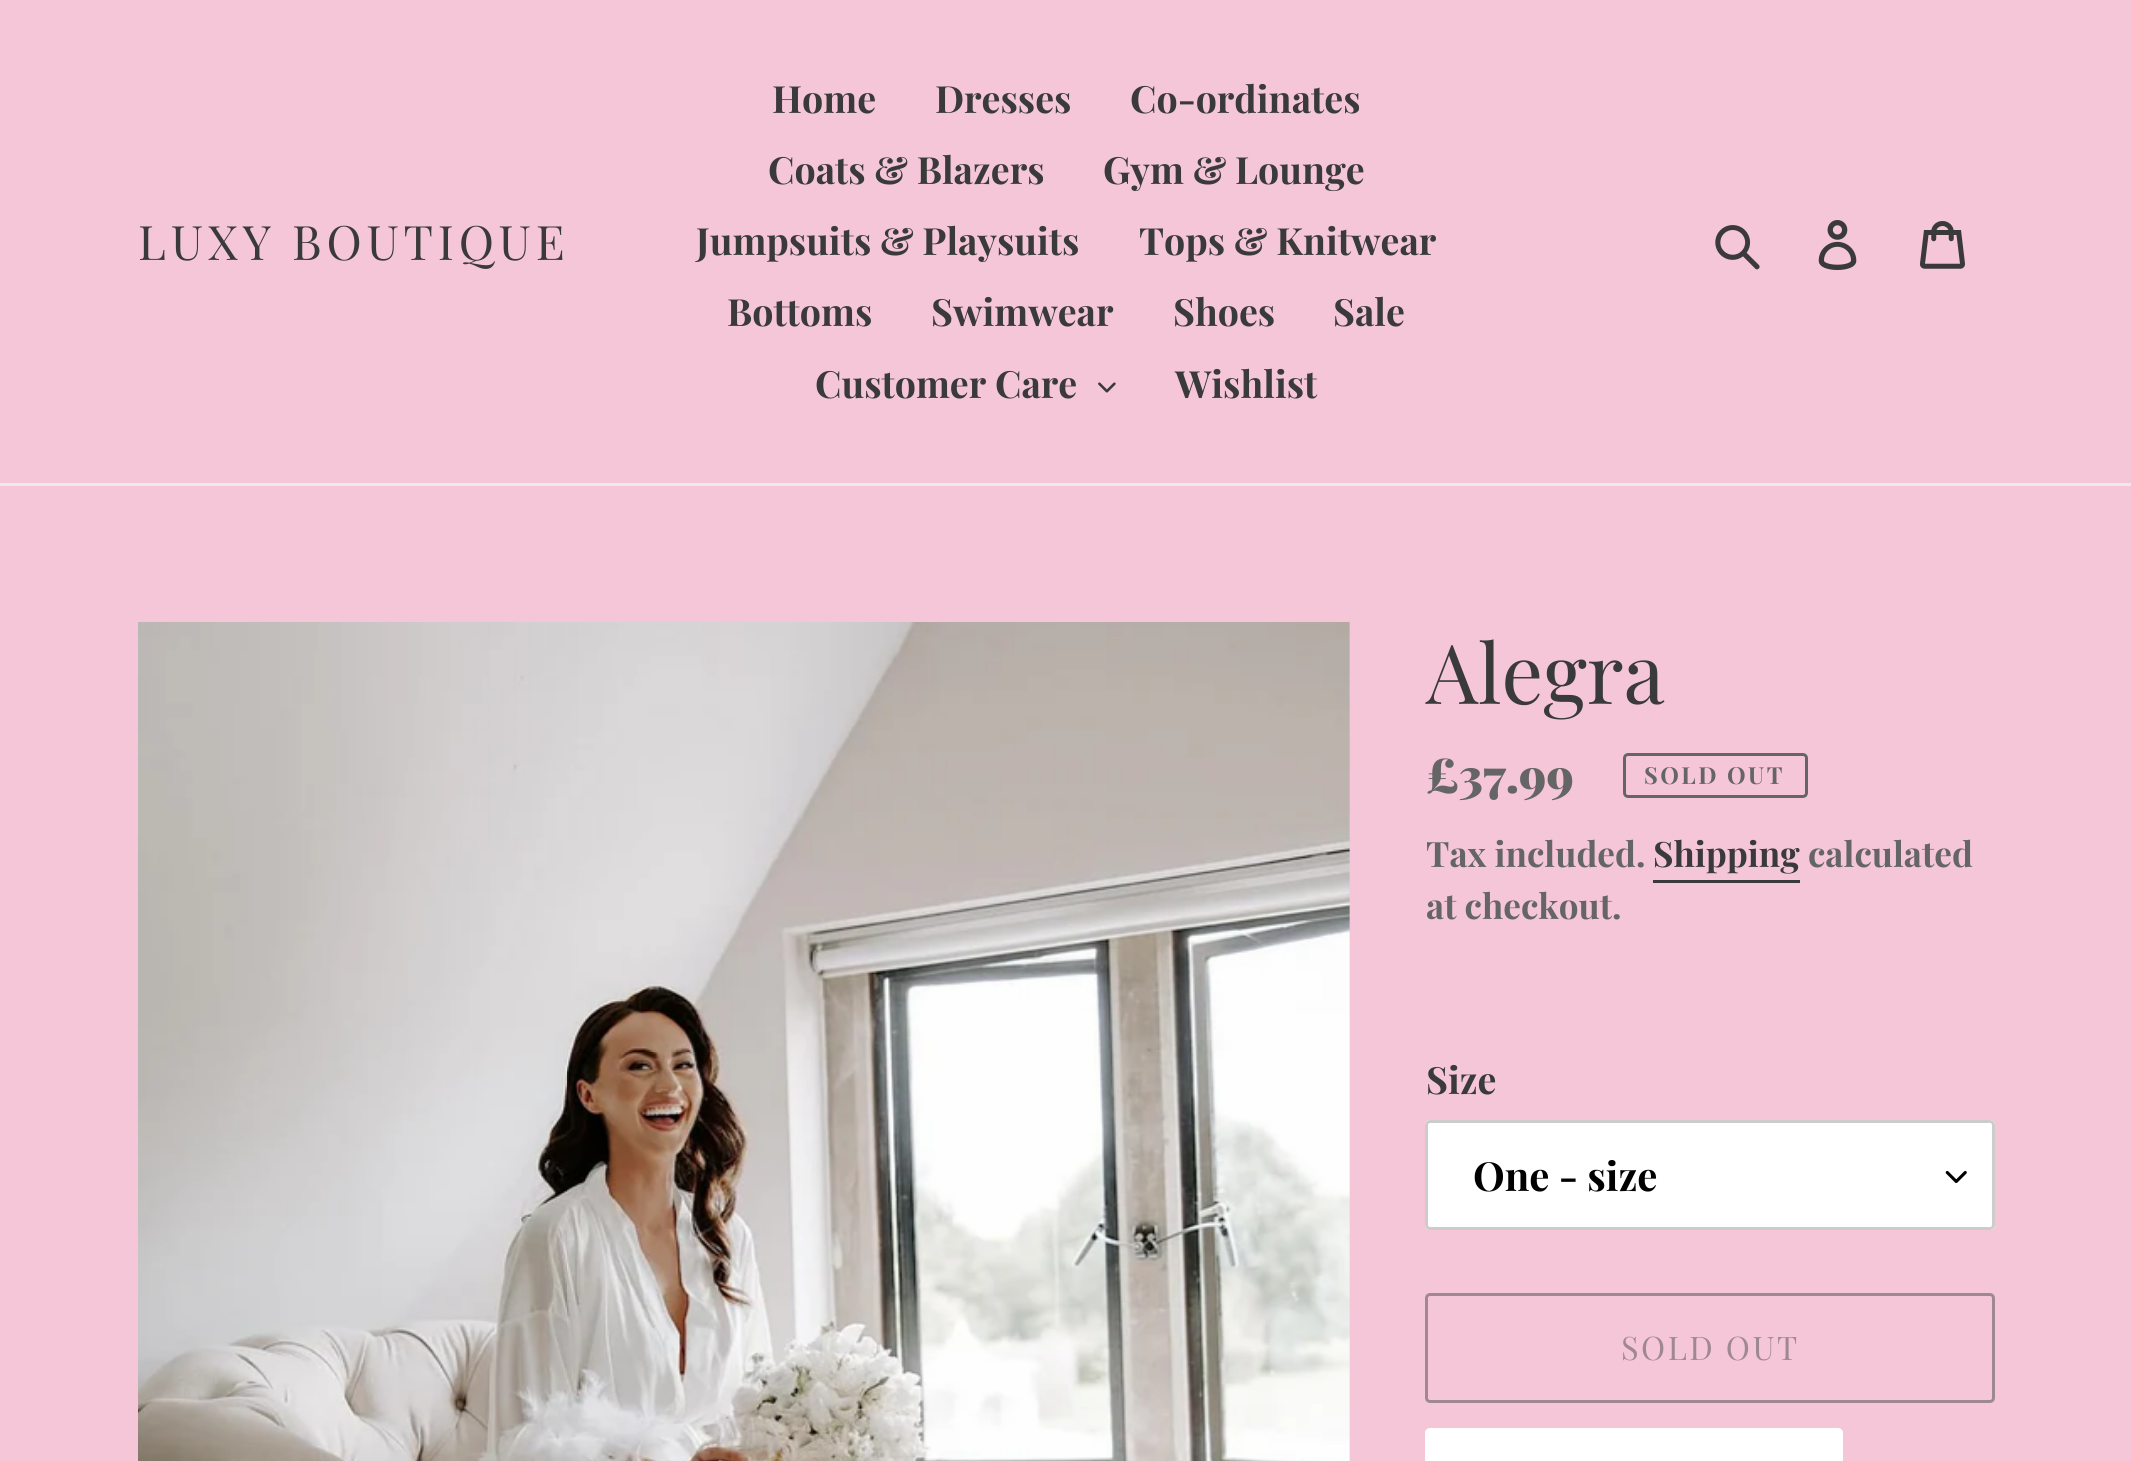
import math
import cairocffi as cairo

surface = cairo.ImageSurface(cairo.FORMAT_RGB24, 2131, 1461)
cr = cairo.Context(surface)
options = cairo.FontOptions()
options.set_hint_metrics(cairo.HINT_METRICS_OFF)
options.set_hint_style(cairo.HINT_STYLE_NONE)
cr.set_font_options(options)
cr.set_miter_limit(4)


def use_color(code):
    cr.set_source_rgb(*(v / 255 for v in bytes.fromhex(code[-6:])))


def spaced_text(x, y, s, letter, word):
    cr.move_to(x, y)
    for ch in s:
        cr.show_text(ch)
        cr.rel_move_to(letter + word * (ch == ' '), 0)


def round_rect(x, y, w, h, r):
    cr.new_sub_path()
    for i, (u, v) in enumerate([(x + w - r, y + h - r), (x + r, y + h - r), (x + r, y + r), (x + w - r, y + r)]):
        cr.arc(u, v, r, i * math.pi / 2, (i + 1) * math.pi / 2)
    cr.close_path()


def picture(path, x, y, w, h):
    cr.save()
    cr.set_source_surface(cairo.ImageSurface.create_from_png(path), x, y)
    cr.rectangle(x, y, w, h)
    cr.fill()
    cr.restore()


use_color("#f4c6d7")
cr.paint()
use_color("#ebebeb")
cr.rectangle(0, 483, 2131, 3)
cr.fill()
cr.select_font_face("Playfair Display")
cr.set_font_size(47.5)
use_color("#3a3a3a")
spaced_text(138, 260, "LUXY BOUTIQUE", 4.75, 0)
cr.select_font_face("Playfair Display", cairo.FONT_SLANT_NORMAL, cairo.FONT_WEIGHT_BOLD)
cr.set_font_size(37.5)
cr.move_to(772, 113)
cr.show_text("Home")
cr.move_to(935, 113)
cr.show_text("Dresses")
cr.move_to(1130, 113)
cr.show_text("Co-ordinates")
cr.move_to(768, 184)
cr.show_text("Coats & Blazers")
cr.move_to(1103, 184)
cr.show_text("Gym & Lounge")
cr.move_to(696, 255)
cr.show_text("Jumpsuits & Playsuits")
cr.move_to(1139, 255)
cr.show_text("Tops & Knitwear")
cr.move_to(727, 326)
cr.show_text("Bottoms")
cr.move_to(931, 326)
cr.show_text("Swimwear")
cr.move_to(1173, 326)
cr.show_text("Shoes")
cr.move_to(1333, 326)
cr.show_text("Sale")
cr.move_to(815, 398)
cr.show_text("Customer Care")
picture("img1.png", 1098, 382, 18, 11)
cr.move_to(1175, 398)
cr.show_text("Wishlist")
picture("img2.png", 1715, 225, 45, 45)
picture("img3.png", 1818, 220, 39, 50)
picture("img4.png", 1920, 221, 45, 48)
picture("img5.png", 138, 622, 1212, 839)
cr.select_font_face("Playfair Display")
cr.set_font_size(82.5)
cr.move_to(1426, 704)
cr.show_text("Alegra")
cr.select_font_face("Playfair Display Black")
cr.set_font_size(47)
use_color("#656565")
cr.move_to(1426, 793)
cr.show_text("£37.99")
round_rect(1624.5, 754.5, 182, 42, 3.5)
cr.set_line_width(3)
cr.stroke()
cr.select_font_face("Playfair Display", cairo.FONT_SLANT_NORMAL, cairo.FONT_WEIGHT_BOLD)
cr.set_font_size(23.5)
spaced_text(1644, 784, "SOLD OUT", 2.5, 0)
cr.set_font_size(35)
cr.move_to(1426, 867)
cr.show_text("Tax included.")
use_color("#3a3a3a")
cr.move_to(1653, 867)
cr.show_text("Shipping")
cr.rectangle(1653, 880, 147, 3)
cr.fill()
use_color("#656565")
cr.move_to(1808, 867)
cr.show_text("calculated")
cr.move_to(1426, 919)
cr.show_text("at checkout.")
cr.set_font_size(37.5)
use_color("#3a3a3a")
cr.move_to(1426, 1094)
cr.show_text("Size")
use_color("#ffffff")
round_rect(1425, 1120, 570, 110, 5)
cr.fill()
picture("img6.png", 1945, 1171, 22, 12)
round_rect(1426.5, 1121.5, 567, 107, 3.5)
use_color("#cccccc")
cr.stroke()
cr.set_font_size(40)
use_color("#000000")
cr.move_to(1473, 1191)
cr.show_text("One - size")
round_rect(1426.5, 1294.5, 567, 107, 3.5)
use_color("#9f8890")
cr.stroke()
cr.select_font_face("Playfair Display")
cr.set_font_size(32.5)
spaced_text(1621, 1360, "SOLD OUT", 2.5, 0)
use_color("#ffffff")
round_rect(1425, 1428, 418, 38, 5)
cr.fill()
surface.write_to_png("result.png")
